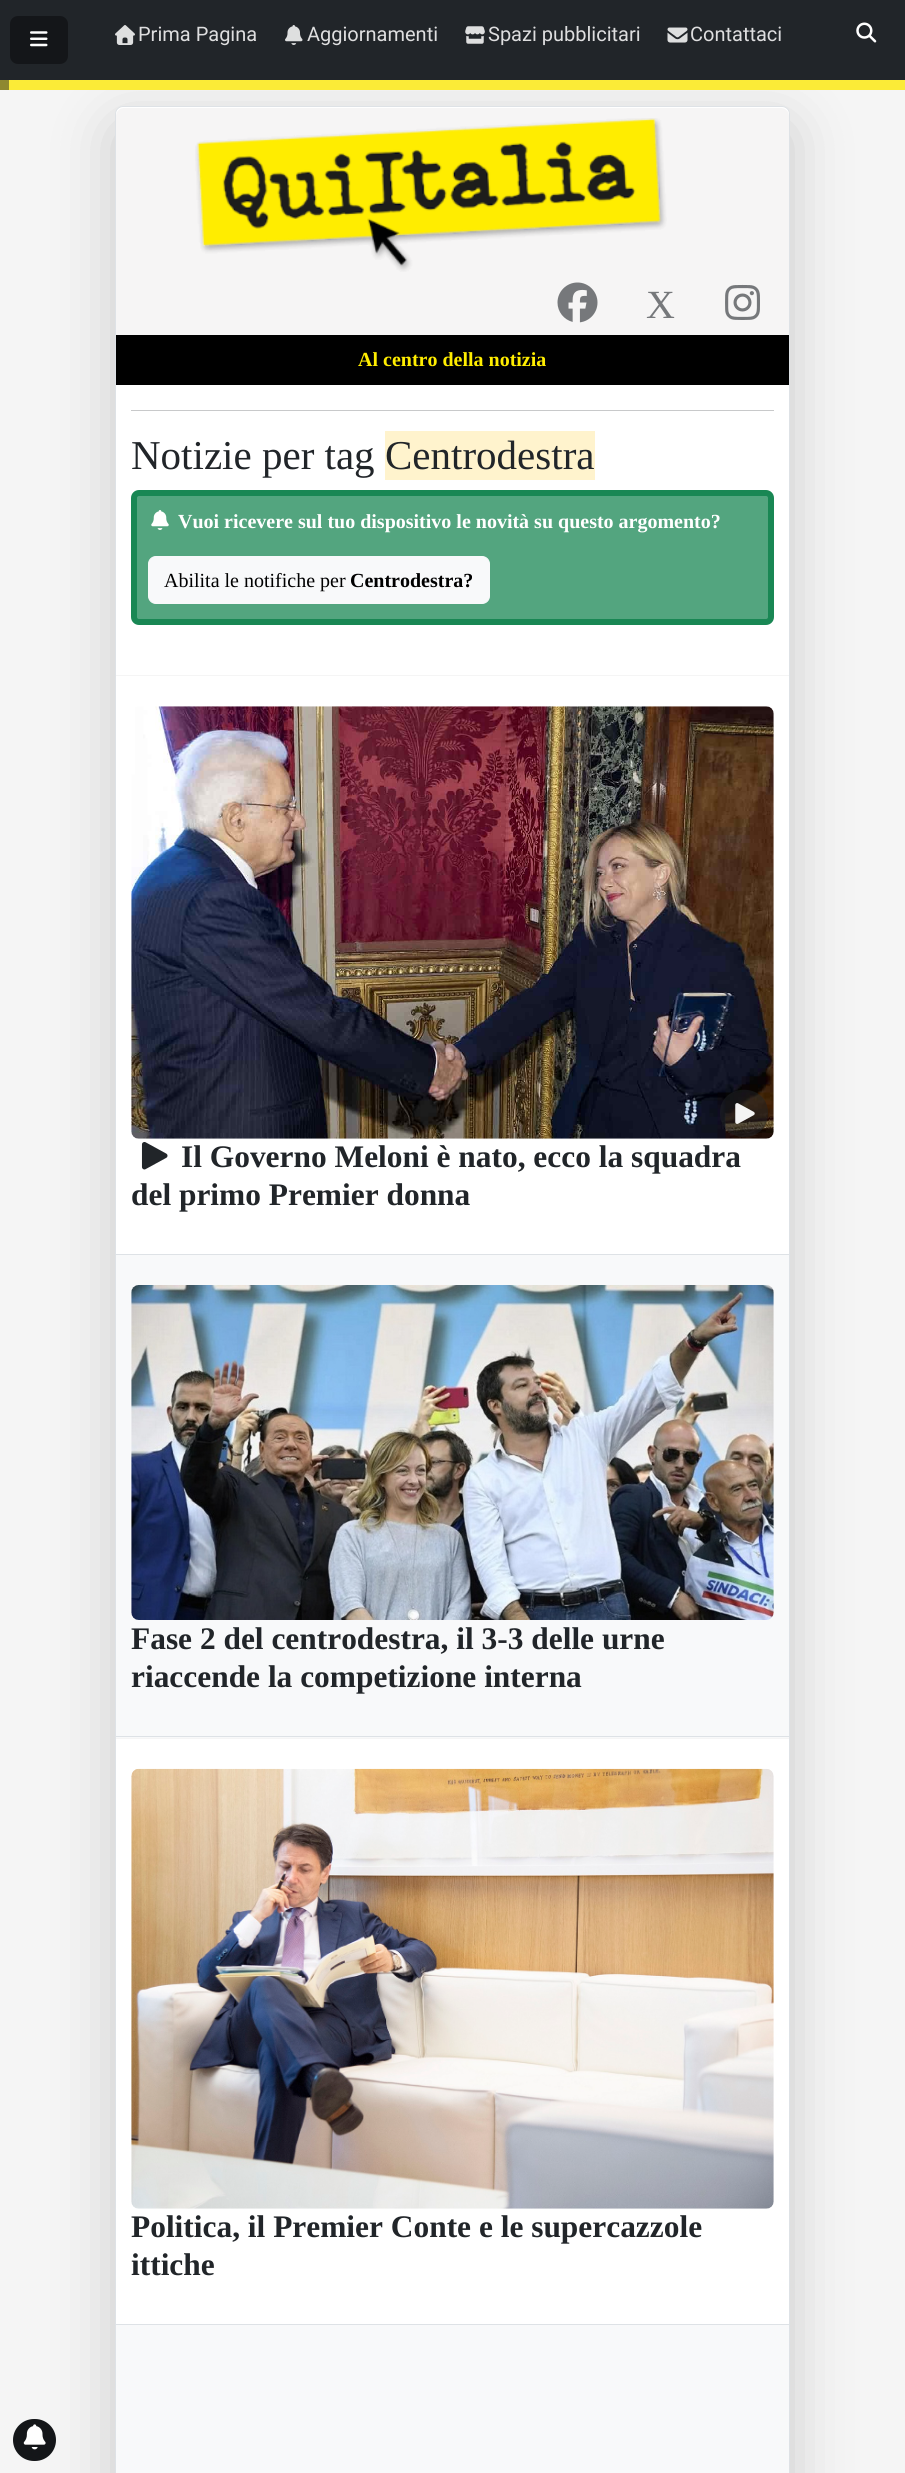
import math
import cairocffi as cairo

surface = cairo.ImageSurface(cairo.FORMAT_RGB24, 905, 2473)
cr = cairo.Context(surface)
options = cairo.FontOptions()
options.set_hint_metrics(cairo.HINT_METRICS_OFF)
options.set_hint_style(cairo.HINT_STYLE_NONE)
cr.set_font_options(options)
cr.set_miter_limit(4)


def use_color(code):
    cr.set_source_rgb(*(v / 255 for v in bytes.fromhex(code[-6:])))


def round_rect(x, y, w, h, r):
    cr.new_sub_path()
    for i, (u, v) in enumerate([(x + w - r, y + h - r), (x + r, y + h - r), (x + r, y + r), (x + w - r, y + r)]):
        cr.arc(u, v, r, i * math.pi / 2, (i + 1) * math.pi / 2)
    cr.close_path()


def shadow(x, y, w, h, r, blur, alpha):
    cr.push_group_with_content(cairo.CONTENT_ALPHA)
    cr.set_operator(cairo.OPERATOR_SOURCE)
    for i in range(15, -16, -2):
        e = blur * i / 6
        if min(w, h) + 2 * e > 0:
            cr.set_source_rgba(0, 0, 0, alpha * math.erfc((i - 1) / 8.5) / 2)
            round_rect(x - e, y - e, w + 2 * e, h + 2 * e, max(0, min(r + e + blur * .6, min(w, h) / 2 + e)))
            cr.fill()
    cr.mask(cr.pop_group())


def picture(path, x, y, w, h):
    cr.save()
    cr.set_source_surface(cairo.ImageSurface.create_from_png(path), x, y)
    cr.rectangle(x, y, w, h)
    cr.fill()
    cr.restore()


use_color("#f5f5f5")
cr.paint()
use_color("#000000")
shadow(115, 126, 675, 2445, 8, 30, 0.18)
use_color("#ffffff")
round_rect(115.5, 106.5, 674, 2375, 7.5)
cr.fill_preserve()
use_color("#dee2e6")
cr.set_line_width(1)
cr.stroke()
use_color("#212529")
cr.rectangle(0, 0, 905, 80)
cr.fill()
use_color("#141619")
round_rect(10, 16, 58, 48, 8)
cr.fill()
picture("img1.png", 30, 31, 18, 16)
picture("img2.png", 115, 25, 20, 20)
cr.select_font_face("Roboto")
cr.set_font_size(20)
use_color("#dededf")
cr.move_to(138, 41)
cr.show_text("Prima Pagina")
picture("img3.png", 285, 25, 18, 20)
cr.move_to(307, 41)
cr.show_text("Aggiornamenti")
picture("img4.png", 465, 26, 20, 18)
cr.move_to(488, 41)
cr.show_text("Spazi pubblicitari")
picture("img5.png", 667, 27, 21, 16)
cr.move_to(690, 41)
cr.show_text("Contattaci")
picture("img6.png", 856, 22, 21, 21)
use_color("#fbeb37")
cr.rectangle(9, 80, 896, 10)
cr.fill()
use_color("#8e8830")
cr.rectangle(0, 80, 9, 10)
cr.fill()
use_color("#f6f5f5")
round_rect(116, 108, 673, 277, 8)
cr.fill()
picture("img7.png", 195, 118, 472, 154)
picture("img8.png", 557, 282, 41, 41)
cr.select_font_face("Liberation Serif")
cr.set_font_size(40)
use_color("#76787b")
cr.move_to(646, 318)
cr.show_text("X")
picture("img9.png", 725, 284, 35, 36)
use_color("#000000")
cr.rectangle(116, 335, 673, 50)
cr.fill()
cr.select_font_face("Liberation Serif", cairo.FONT_SLANT_NORMAL, cairo.FONT_WEIGHT_BOLD)
cr.set_font_size(20)
use_color("#ffed00")
cr.move_to(358, 366)
cr.show_text("Al centro della notizia")
use_color("#c8c9ca")
cr.rectangle(131, 410, 643, 1)
cr.fill()
cr.select_font_face("Liberation Serif")
cr.set_font_size(41)
use_color("#212529")
cr.move_to(131, 469)
cr.show_text("Notizie per tag")
use_color("#fff3cd")
cr.rectangle(385, 431, 210, 49)
cr.fill()
use_color("#212529")
cr.move_to(385, 469)
cr.show_text("Centrodestra")
use_color("#53a57f")
round_rect(134, 493, 637, 129, 5)
cr.fill_preserve()
use_color("#198754")
cr.set_line_width(6)
cr.stroke()
picture("img10.png", 151, 510, 18, 20)
cr.select_font_face("Liberation Serif", cairo.FONT_SLANT_NORMAL, cairo.FONT_WEIGHT_BOLD)
cr.set_font_size(20)
use_color("#ffffff")
cr.move_to(178, 528)
cr.show_text("Vuoi ricevere sul tuo dispositivo le novità su questo argomento?")
use_color("#f8f9fa")
round_rect(148.5, 556.5, 341, 47, 7.5)
cr.fill_preserve()
cr.set_line_width(1)
cr.stroke()
cr.select_font_face("Liberation Serif")
use_color("#000000")
cr.move_to(164, 587)
cr.show_text("Abilita le notifiche per")
cr.select_font_face("Liberation Serif", cairo.FONT_SLANT_NORMAL, cairo.FONT_WEIGHT_BOLD)
cr.move_to(350, 587)
cr.show_text("Centrodestra?")
use_color("#f5f5f5")
cr.rectangle(116, 675, 673, 1)
cr.fill()
picture("img11.png", 131, 706, 643, 433)
cr.set_source_rgba(0.129, 0.145, 0.161, 0.5)
cr.new_path()
cr.move_to(720, 1113)
cr.curve_to(720, 1082, 768, 1082, 768, 1113)
cr.curve_to(768, 1145, 720, 1145, 720, 1113)
cr.close_path()
cr.fill()
picture("img12.png", 735, 1103, 20, 21)
picture("img13.png", 141, 1142, 27, 28)
cr.set_font_size(31.4)
use_color("#212529")
cr.move_to(181, 1167)
cr.show_text("Il Governo Meloni è nato, ecco la squadra")
cr.move_to(131, 1205)
cr.show_text("del primo Premier donna")
use_color("#f8f9fa")
cr.rectangle(116, 1255, 673, 483)
cr.fill()
use_color("#dee2e6")
cr.rectangle(116, 1254, 673, 1)
cr.fill()
cr.rectangle(116, 1736, 673, 1)
cr.fill()
picture("img14.png", 131, 1285, 643, 335)
use_color("#212529")
cr.move_to(131, 1649)
cr.show_text("Fase 2 del centrodestra, il 3-3 delle urne")
cr.move_to(131, 1687)
cr.show_text("riaccende la competizione interna")
use_color("#f5f5f5")
cr.rectangle(116, 1738, 673, 1)
cr.fill()
picture("img15.png", 131, 1768, 643, 441)
use_color("#212529")
cr.move_to(131, 2237)
cr.show_text("Politica, il Premier Conte e le supercazzole")
cr.move_to(131, 2275)
cr.show_text("ittiche")
use_color("#f8f9fa")
cr.rectangle(116, 2325, 673, 148)
cr.fill()
use_color("#dee2e6")
cr.rectangle(116, 2324, 673, 1)
cr.fill()
use_color("#141619")
round_rect(13, 2419, 43, 42, 21)
cr.fill()
picture("img16.png", 23, 2424, 23, 26)
surface.write_to_png("result.png")
